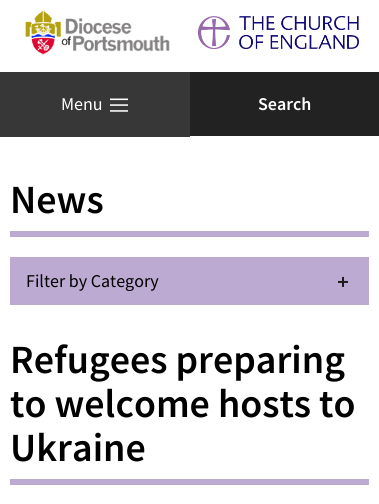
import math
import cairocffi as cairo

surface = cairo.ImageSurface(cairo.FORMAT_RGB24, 379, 504)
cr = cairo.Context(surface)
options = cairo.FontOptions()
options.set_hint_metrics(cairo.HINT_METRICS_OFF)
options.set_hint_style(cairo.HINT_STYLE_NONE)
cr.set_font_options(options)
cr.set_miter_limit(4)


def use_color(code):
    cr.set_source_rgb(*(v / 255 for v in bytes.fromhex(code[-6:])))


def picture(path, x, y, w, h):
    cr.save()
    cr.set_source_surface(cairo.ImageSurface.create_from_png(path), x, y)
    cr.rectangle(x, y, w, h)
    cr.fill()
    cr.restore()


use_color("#ffffff")
cr.paint()
picture("img1.png", 25, 10, 145, 45)
picture("img2.png", 198, 16, 161, 33)
use_color("#373737")
cr.rectangle(0, 72, 190, 65)
cr.fill()
cr.select_font_face("Source Sans Pro")
cr.set_font_size(18)
use_color("#ffffff")
cr.move_to(61, 110)
cr.show_text("Menu")
cr.select_font_face("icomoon")
cr.move_to(110, 113)
cr.show_text("=")
use_color("#222222")
cr.rectangle(190, 72, 189, 64)
cr.fill()
cr.select_font_face("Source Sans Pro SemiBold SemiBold")
use_color("#ffffff")
cr.move_to(258, 110)
cr.show_text("Search")
cr.set_font_size(40)
use_color("#000000")
cr.move_to(10, 213)
cr.show_text("News")
use_color("#bcaad3")
cr.rectangle(10, 231, 359, 6)
cr.fill()
cr.rectangle(10, 257, 359, 48)
cr.fill()
cr.select_font_face("Source Sans Pro")
cr.set_font_size(18)
use_color("#000000")
cr.move_to(26, 287)
cr.show_text("Filter by Category")
picture("img3.png", 338, 276, 10, 11)
cr.select_font_face("Source Sans Pro SemiBold SemiBold")
cr.set_font_size(40)
cr.move_to(10, 373)
cr.show_text("Refugees preparing")
cr.move_to(10, 417)
cr.show_text("to welcome hosts to")
cr.move_to(10, 461)
cr.show_text("Ukraine")
use_color("#bcaad3")
cr.rectangle(10, 479, 359, 6)
cr.fill()
surface.write_to_png("result.png")
